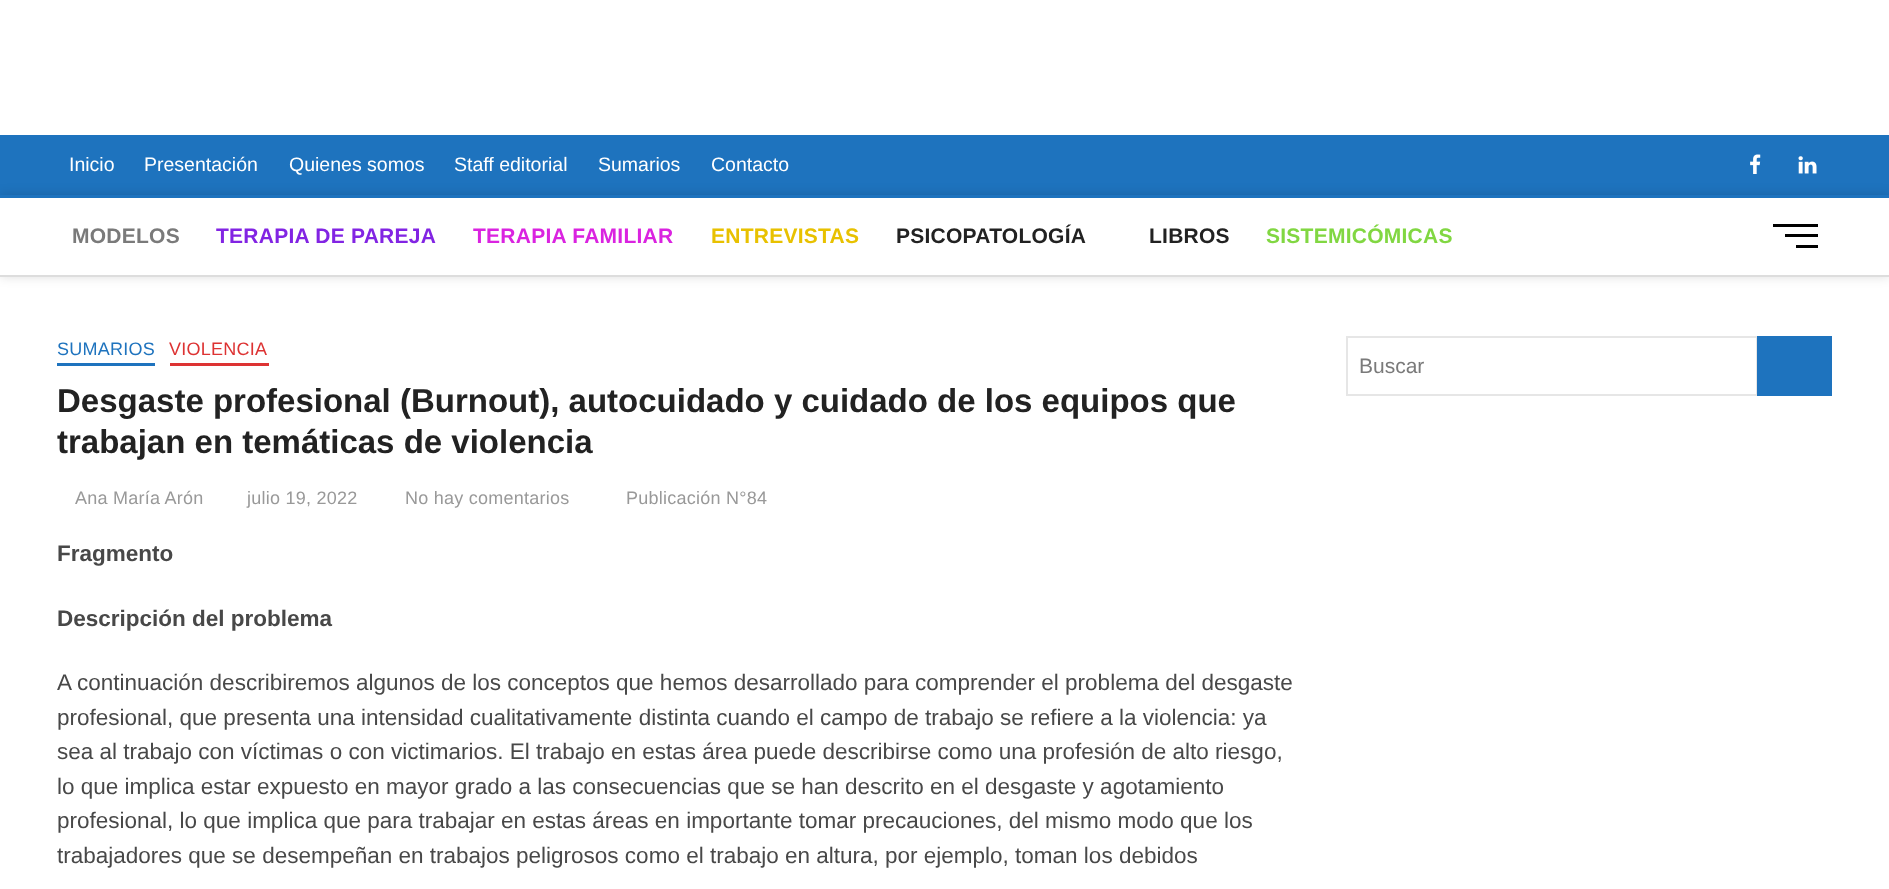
<!DOCTYPE html>
<meta charset="utf-8">
<style>body { margin: 0 } canvas { display: block }</style>
<canvas id="canvas" width="1889" height="889"></canvas>
<img id="img1" src="images/1.png" hidden>
<img id="img2" src="images/2.png" hidden>
<script>
window.onload = function () {
    const canvas = document.getElementById('canvas');
    const context = canvas.getContext('2d');
    context.miterLimit = 4;
    context.fontKerning = 'normal';

    context.fillStyle = 'rgb(255, 255, 255)';
    context.fillRect(0, 0, 1889, 889);
    context.fillStyle = 'rgb(30, 115, 190)';
    context.fillRect(0, 135, 1889, 60);
    context.drawImage(document.getElementById('img1'), 1750, 154, 11, 20);
    context.drawImage(document.getElementById('img2'), 1798, 156, 19, 18);
    context.save();
    context.beginPath();
    context.moveTo(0, 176);
    context.lineTo(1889, 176);
    context.lineTo(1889, 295);
    context.lineTo(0, 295);
    context.closePath();
    context.moveTo(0, 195);
    context.lineTo(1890, 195);
    context.lineTo(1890, 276);
    context.lineTo(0, 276);
    context.closePath();
    context.clip('evenodd');
    context.fillStyle = 'rgba(0, 0, 0, 0.15)';
    context.filter = 'blur(6px)';
    context.beginPath();
    context.rect(0, 195, 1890, 81);
    context.fill();
    context.filter = 'none';
    context.restore();
    context.fillRect(0, 195, 1889, 3);
    context.fillStyle = 'rgb(221, 221, 221)';
    context.fillRect(0, 275, 1889, 2);
    context.fillStyle = 'rgb(0, 0, 0)';
    context.fillRect(1785, 234, 33, 3);
    context.fillRect(1773, 224, 45, 3);
    context.fillRect(1796, 245, 22, 3);
    context.fillStyle = 'rgb(30, 115, 190)';
    context.fillRect(57, 363, 98, 3);
    context.fillStyle = 'rgb(221, 51, 51)';
    context.fillRect(170, 363, 99, 3);
    context.strokeStyle = 'rgb(230, 230, 230)';
    context.lineWidth = 2;
    context.strokeRect(1347, 337, 410, 58);
    context.fillStyle = 'rgb(30, 115, 190)';
    context.fillRect(1757, 336, 75, 60);
    context.font = '19.5px Liberation Sans';
    context.fillStyle = 'rgb(255, 255, 255)';
    context.fillText('Inicio', 69, 171);
    context.fillText('Presentación', 144, 171);
    context.fillText('Quienes somos', 289, 171);
    context.fillText('Staff editorial', 454, 171);
    context.fillText('Sumarios', 598, 171);
    context.fillText('Contacto', 711, 171);
    context.letterSpacing = '0.25px';
    context.font = 'bold 21px Liberation Sans';
    context.fillStyle = 'rgb(122, 122, 122)';
    context.fillText('MODELOS', 72, 243);
    context.fillStyle = 'rgb(130, 36, 227)';
    context.fillText('TERAPIA DE PAREJA', 216, 243);
    context.fillStyle = 'rgb(218, 35, 224)';
    context.fillText('TERAPIA FAMILIAR', 473, 243);
    context.fillStyle = 'rgb(232, 193, 0)';
    context.fillText('ENTREVISTAS', 711, 243);
    context.fillStyle = 'rgb(34, 34, 34)';
    context.fillText('PSICOPATOLOGÍA', 896, 243);
    context.fillText('LIBROS', 1149, 243);
    context.fillStyle = 'rgb(129, 215, 66)';
    context.fillText('SISTEMICÓMICAS', 1266, 243);
    context.font = '18px Liberation Sans';
    context.fillStyle = 'rgb(30, 115, 190)';
    context.fillText('SUMARIOS', 57, 355);
    context.fillStyle = 'rgb(221, 51, 51)';
    context.fillText('VIOLENCIA', 169, 355);
    context.letterSpacing = '0px';
    context.font = 'bold 33px Liberation Sans';
    context.fillStyle = 'rgb(34, 34, 34)';
    context.fillText('Desgaste profesional (Burnout), autocuidado y cuidado de los equipos que', 57, 412);
    context.fillText('trabajan en temáticas de violencia', 57, 453);
    context.letterSpacing = '0.25px';
    context.font = '18px Liberation Sans';
    context.fillStyle = 'rgb(153, 153, 153)';
    context.fillText('Ana María Arón', 75, 504);
    context.fillText('julio 19, 2022', 247, 504);
    context.fillText('No hay comentarios', 405, 504);
    context.fillText('Publicación N°84', 626, 504);
    context.letterSpacing = '0px';
    context.font = 'bold 22.5px Liberation Sans';
    context.fillStyle = 'rgb(72, 72, 72)';
    context.fillText('Fragmento', 57, 561);
    context.fillText('Descripción del problema', 57, 626);
    context.font = '22.5px Liberation Sans';
    context.fillText('A continuación describiremos algunos de los conceptos que hemos desarrollado para comprender el problema del desgaste', 57, 690);
    context.fillText('profesional, que presenta una intensidad cualitativamente distinta cuando el campo de trabajo se refiere a la violencia: ya', 57, 725);
    context.fillText('sea al trabajo con víctimas o con victimarios. El trabajo en estas área puede describirse como una profesión de alto riesgo,', 57, 759);
    context.fillText('lo que implica estar expuesto en mayor grado a las consecuencias que se han descrito en el desgaste y agotamiento', 57, 794);
    context.fillText('profesional, lo que implica que para trabajar en estas áreas en importante tomar precauciones, del mismo modo que los', 57, 828);
    context.fillText('trabajadores que se desempeñan en trabajos peligrosos como el trabajo en altura, por ejemplo, toman los debidos', 57, 863);
    context.font = '21px Liberation Sans';
    context.fillStyle = 'rgb(122, 122, 122)';
    context.fillText('Buscar', 1359, 373);
};
</script>
